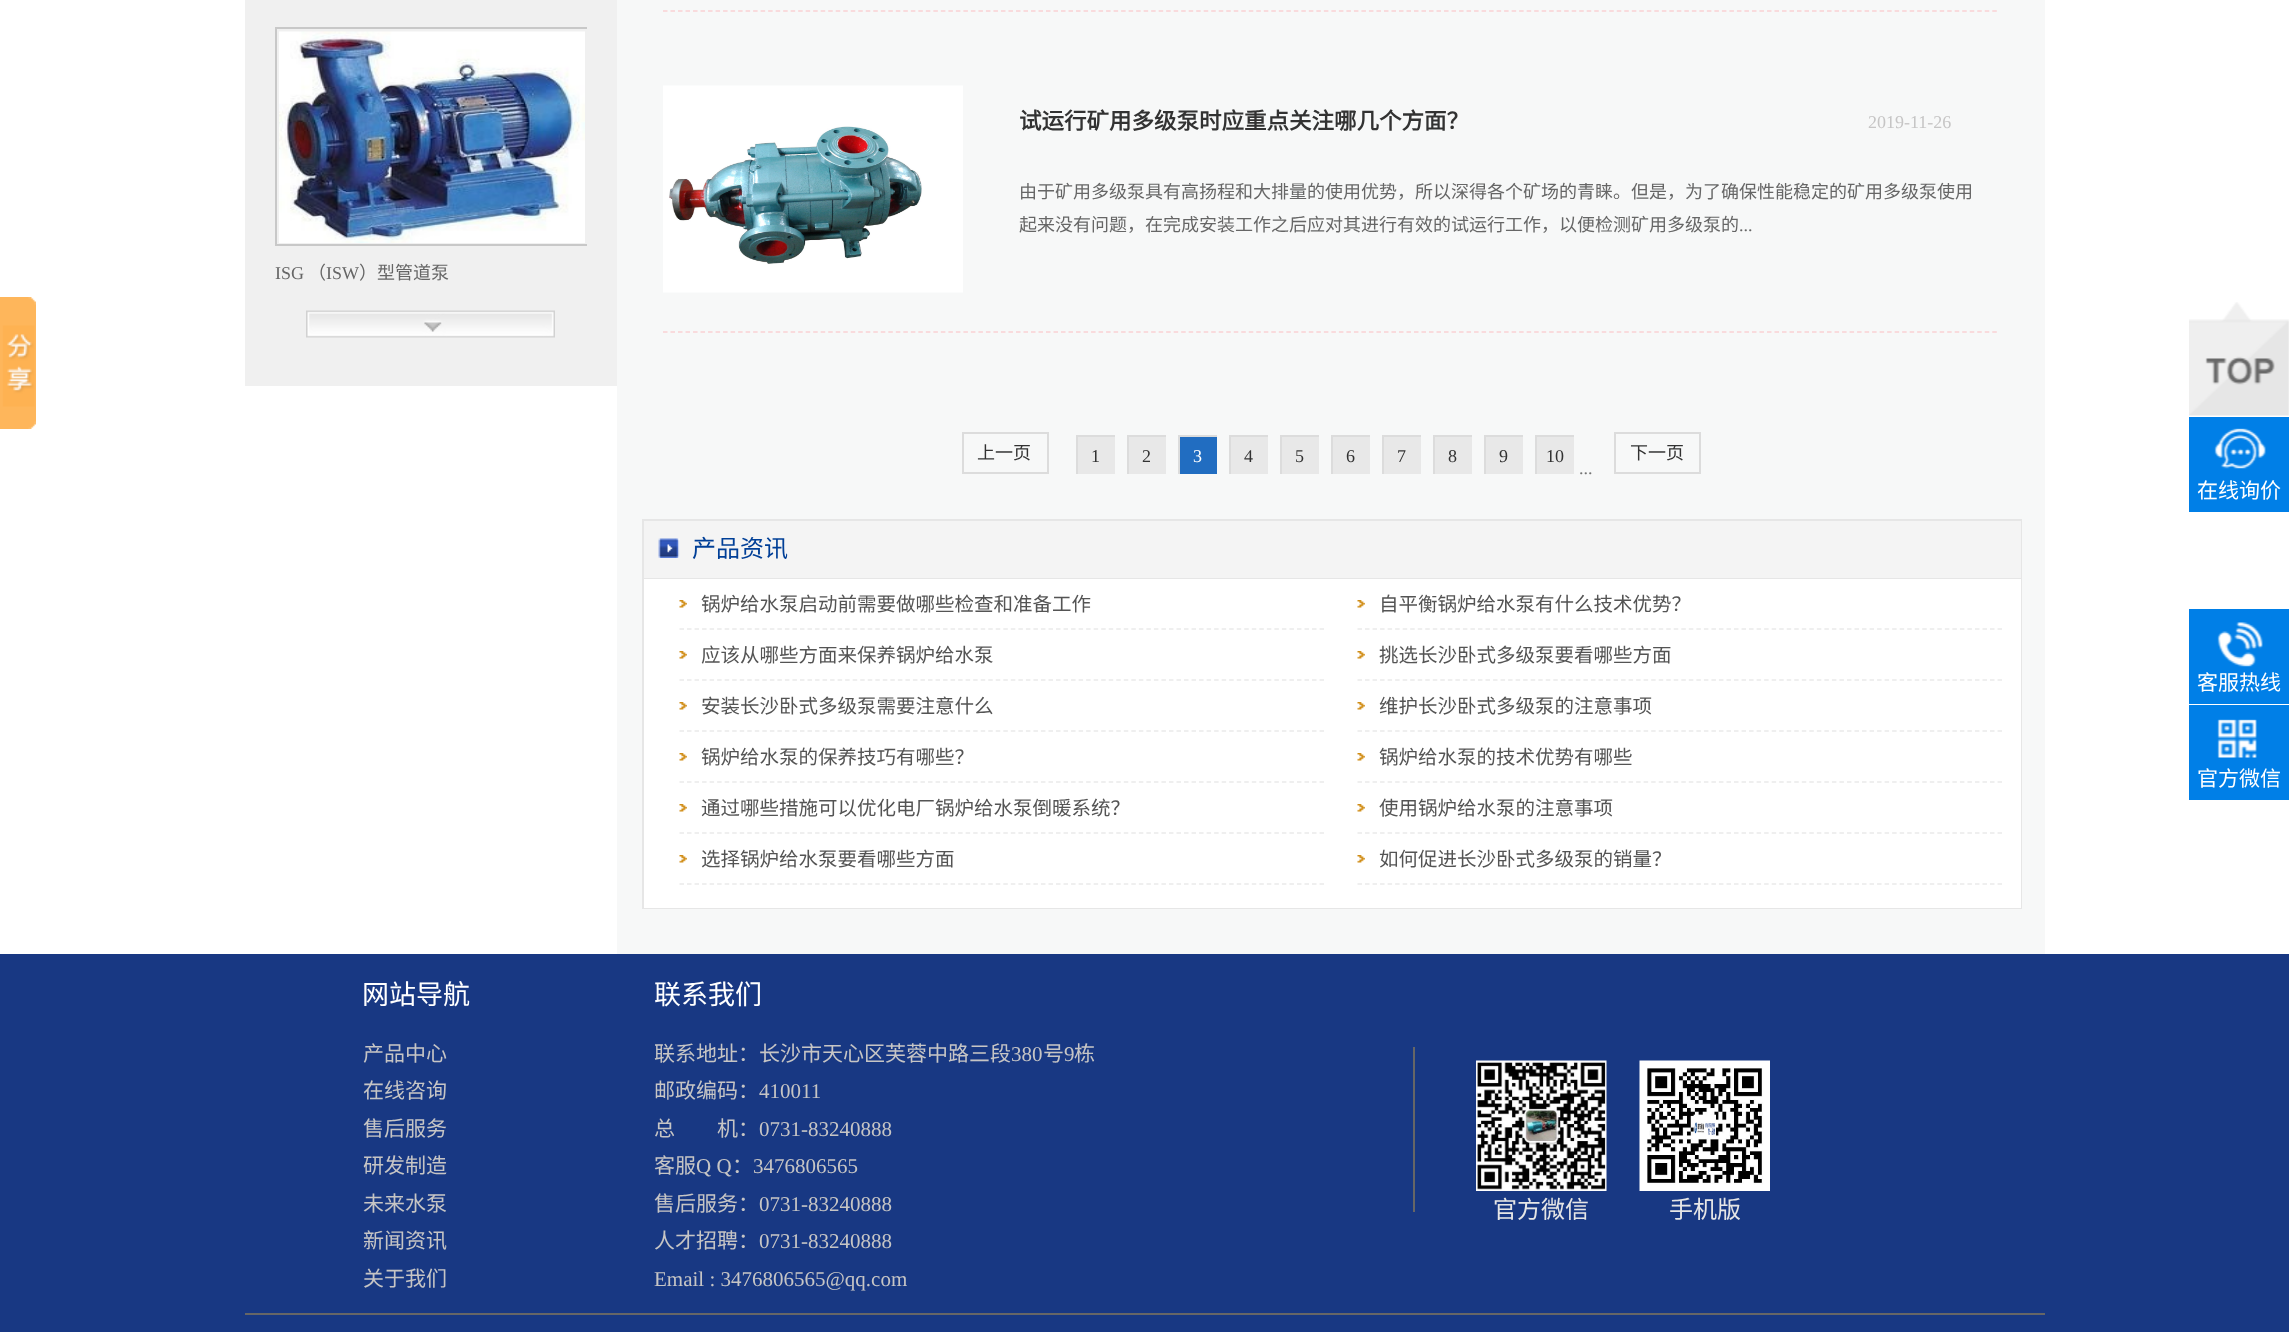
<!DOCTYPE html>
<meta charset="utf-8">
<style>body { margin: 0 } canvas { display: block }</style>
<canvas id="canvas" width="2289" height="1332"></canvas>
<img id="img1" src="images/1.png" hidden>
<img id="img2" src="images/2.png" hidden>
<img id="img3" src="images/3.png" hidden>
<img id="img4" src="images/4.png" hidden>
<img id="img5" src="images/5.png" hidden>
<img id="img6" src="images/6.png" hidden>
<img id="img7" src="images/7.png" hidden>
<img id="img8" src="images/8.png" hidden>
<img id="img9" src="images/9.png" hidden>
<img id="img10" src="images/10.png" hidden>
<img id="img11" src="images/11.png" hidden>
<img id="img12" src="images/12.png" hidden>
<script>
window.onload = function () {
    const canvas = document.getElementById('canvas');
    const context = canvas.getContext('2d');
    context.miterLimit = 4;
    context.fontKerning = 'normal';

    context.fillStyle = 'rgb(255, 255, 255)';
    context.fillRect(0, 0, 2289, 1332);
    context.drawImage(document.getElementById('img1'), 0, 297, 36, 132);
    context.fillStyle = 'rgb(240, 240, 240)';
    context.fillRect(245, 0, 372, 386);
    context.save();
    context.beginPath();
    context.rect(275, 27, 312, 260);
    context.clip();
    context.strokeStyle = 'rgb(200, 200, 200)';
    context.lineWidth = 2;
    context.strokeRect(276, 28, 313, 217);
    context.restore();
    context.drawImage(document.getElementById('img2'), 279, 31, 306, 212);
    context.drawImage(document.getElementById('img3'), 306, 310, 249, 28);
    context.fillStyle = 'rgb(247, 248, 248)';
    context.fillRect(617, 0, 1428, 954);
    context.beginPath();
    context.moveTo(663, 11);
    context.lineTo(1998, 11);
    context.strokeStyle = 'rgb(250, 209, 211)';
    context.lineWidth = 1.5;
    context.setLineDash([4.5, 3.01]);
    context.stroke();
    context.beginPath();
    context.moveTo(663, 332);
    context.lineTo(1998, 332);
    context.stroke();
    context.drawImage(document.getElementById('img4'), 663, 85, 300, 208);
    context.strokeStyle = 'rgb(220, 220, 220)';
    context.lineWidth = 2;
    context.setLineDash([]);
    context.strokeRect(963, 433, 85, 40);
    context.fillStyle = 'rgb(232, 232, 232)';
    context.fillRect(1078, 437, 37, 37);
    context.save();
    context.beginPath();
    context.rect(1076, 435, 39, 39);
    context.clip();
    context.strokeRect(1077, 436, 40, 40);
    context.restore();
    context.fillRect(1129, 437, 37, 37);
    context.save();
    context.beginPath();
    context.rect(1127, 435, 39, 39);
    context.clip();
    context.strokeRect(1128, 436, 40, 40);
    context.restore();
    context.fillStyle = 'rgb(33, 109, 193)';
    context.fillRect(1180, 437, 37, 37);
    context.save();
    context.beginPath();
    context.rect(1178, 435, 39, 39);
    context.clip();
    context.strokeRect(1179, 436, 40, 40);
    context.restore();
    context.fillStyle = 'rgb(232, 232, 232)';
    context.fillRect(1231, 437, 37, 37);
    context.save();
    context.beginPath();
    context.rect(1229, 435, 39, 39);
    context.clip();
    context.strokeRect(1230, 436, 40, 40);
    context.restore();
    context.fillRect(1282, 437, 37, 37);
    context.save();
    context.beginPath();
    context.rect(1280, 435, 39, 39);
    context.clip();
    context.strokeRect(1281, 436, 40, 40);
    context.restore();
    context.fillRect(1333, 437, 37, 37);
    context.save();
    context.beginPath();
    context.rect(1331, 435, 39, 39);
    context.clip();
    context.strokeRect(1332, 436, 40, 40);
    context.restore();
    context.fillRect(1384, 437, 37, 37);
    context.save();
    context.beginPath();
    context.rect(1382, 435, 39, 39);
    context.clip();
    context.strokeRect(1383, 436, 40, 40);
    context.restore();
    context.fillRect(1435, 437, 37, 37);
    context.save();
    context.beginPath();
    context.rect(1433, 435, 39, 39);
    context.clip();
    context.strokeRect(1434, 436, 40, 40);
    context.restore();
    context.fillRect(1486, 437, 37, 37);
    context.save();
    context.beginPath();
    context.rect(1484, 435, 39, 39);
    context.clip();
    context.strokeRect(1485, 436, 40, 40);
    context.restore();
    context.fillRect(1537, 437, 37, 37);
    context.save();
    context.beginPath();
    context.rect(1535, 435, 39, 39);
    context.clip();
    context.strokeRect(1536, 436, 40, 40);
    context.restore();
    context.strokeRect(1615, 433, 85, 40);
    context.strokeStyle = 'rgb(230, 230, 230)';
    context.strokeRect(643, 520, 1378, 388);
    context.fillStyle = 'rgb(244, 244, 244)';
    context.fillRect(644, 521, 1377, 57);
    context.fillStyle = 'rgb(230, 230, 230)';
    context.fillRect(644, 578, 1377, 1);
    context.drawImage(document.getElementById('img5'), 658, 538, 22, 20);
    context.fillStyle = 'rgb(255, 255, 255)';
    context.fillRect(644, 579, 1377, 329);
    context.beginPath();
    context.moveTo(679.5, 629);
    context.lineTo(1324.5, 629);
    context.strokeStyle = 'rgb(234, 234, 234)';
    context.lineWidth = 1.5;
    context.setLineDash([4.5, 3.03]);
    context.stroke();
    context.drawImage(document.getElementById('img6'), 679, 600, 8, 8);
    context.beginPath();
    context.moveTo(1357.5, 629);
    context.lineTo(2002.5, 629);
    context.stroke();
    context.drawImage(document.getElementById('img6'), 1357, 600, 8, 8);
    context.beginPath();
    context.moveTo(679.5, 680);
    context.lineTo(1324.5, 680);
    context.stroke();
    context.drawImage(document.getElementById('img6'), 679, 651, 8, 8);
    context.beginPath();
    context.moveTo(1357.5, 680);
    context.lineTo(2002.5, 680);
    context.stroke();
    context.drawImage(document.getElementById('img6'), 1357, 651, 8, 8);
    context.beginPath();
    context.moveTo(679.5, 731);
    context.lineTo(1324.5, 731);
    context.stroke();
    context.drawImage(document.getElementById('img6'), 679, 702, 8, 8);
    context.beginPath();
    context.moveTo(1357.5, 731);
    context.lineTo(2002.5, 731);
    context.stroke();
    context.drawImage(document.getElementById('img6'), 1357, 702, 8, 8);
    context.beginPath();
    context.moveTo(679.5, 782);
    context.lineTo(1324.5, 782);
    context.stroke();
    context.drawImage(document.getElementById('img6'), 679, 753, 8, 8);
    context.beginPath();
    context.moveTo(1357.5, 782);
    context.lineTo(2002.5, 782);
    context.stroke();
    context.drawImage(document.getElementById('img6'), 1357, 753, 8, 8);
    context.beginPath();
    context.moveTo(679.5, 833);
    context.lineTo(1324.5, 833);
    context.stroke();
    context.drawImage(document.getElementById('img6'), 679, 804, 8, 8);
    context.beginPath();
    context.moveTo(1357.5, 833);
    context.lineTo(2002.5, 833);
    context.stroke();
    context.drawImage(document.getElementById('img6'), 1357, 804, 8, 8);
    context.beginPath();
    context.moveTo(679.5, 884);
    context.lineTo(1324.5, 884);
    context.stroke();
    context.drawImage(document.getElementById('img6'), 679, 855, 8, 8);
    context.beginPath();
    context.moveTo(1357.5, 884);
    context.lineTo(2002.5, 884);
    context.stroke();
    context.drawImage(document.getElementById('img6'), 1357, 855, 8, 8);
    context.drawImage(document.getElementById('img7'), 2189, 302, 100, 114);
    context.fillStyle = 'rgb(0, 127, 231)';
    context.fillRect(2189, 417, 100, 95);
    context.drawImage(document.getElementById('img8'), 2214, 428, 52, 41);
    context.fillRect(2189, 609, 100, 95);
    context.drawImage(document.getElementById('img9'), 2217, 622, 46, 45);
    context.fillRect(2189, 705, 100, 95);
    context.drawImage(document.getElementById('img10'), 2217, 719, 40, 39);
    context.fillStyle = 'rgb(24, 56, 131)';
    context.fillRect(0, 954, 2289, 378);
    context.fillStyle = 'rgb(102, 102, 102)';
    context.fillRect(1413, 1047, 2, 165);
    context.drawImage(document.getElementById('img11'), 1476, 1060, 131, 131);
    context.drawImage(document.getElementById('img12'), 1639, 1060, 131, 131);
    context.fillRect(245, 1313, 1800, 2);
    context.font = '18px Liberation Serif';
    context.fillText('ISG', 275, 279);
    context.font = '18px Noto Sans CJK SC';
    context.fillText('（', 308, 279);
    context.font = '18px Liberation Serif';
    context.fillText('ISW', 326, 279);
    context.font = '18px Noto Sans CJK SC';
    context.fillText('）型管道泵', 359, 279);
    context.font = 'bold 22.5px Noto Sans CJK SC';
    context.fillStyle = 'rgb(50, 50, 50)';
    context.fillText('试运行矿用多级泵时应重点关注哪几个方面？', 1019, 129);
    context.font = '18px Liberation Serif';
    context.fillStyle = 'rgb(198, 197, 197)';
    context.fillText('2019-11-26', 1868, 128);
    context.font = '18px Noto Sans CJK SC';
    context.fillStyle = 'rgb(102, 102, 102)';
    context.fillText('由于矿用多级泵具有高扬程和大排量的使用优势，所以深得各个矿场的青睐。但是，为了确保性能稳定的矿用多级泵使用', 1019, 198);
    context.fillText('起来没有问题，在完成安装工作之后应对其进行有效的试运行工作，以便检测矿用多级泵的', 1019, 231);
    context.font = '18px Liberation Serif';
    context.fillText('...', 1739, 231);
    context.font = '18px Noto Sans CJK SC';
    context.fillStyle = 'rgb(50, 50, 50)';
    context.fillText('上一页', 977, 459);
    context.font = '18px Liberation Serif';
    context.fillText('1', 1091, 462);
    context.fillText('2', 1142, 462);
    context.fillStyle = 'rgb(255, 255, 255)';
    context.fillText('3', 1193, 462);
    context.fillStyle = 'rgb(50, 50, 50)';
    context.fillText('4', 1244, 462);
    context.fillText('5', 1295, 462);
    context.fillText('6', 1346, 462);
    context.fillText('7', 1397, 462);
    context.fillText('8', 1448, 462);
    context.fillText('9', 1499, 462);
    context.fillText('10', 1546, 462);
    context.font = '18px Noto Sans CJK SC';
    context.fillText('下一页', 1630, 459);
    context.font = '18px Liberation Serif';
    context.fillStyle = 'rgb(115, 115, 115)';
    context.fillText('...', 1579, 474);
    context.font = '24px Noto Sans CJK SC';
    context.fillStyle = 'rgb(0, 63, 151)';
    context.fillText('产品资讯', 692, 557);
    context.font = '19.5px Noto Sans CJK SC';
    context.fillStyle = 'rgb(84, 84, 84)';
    context.fillText('锅炉给水泵启动前需要做哪些检查和准备工作', 701, 611);
    context.fillText('自平衡锅炉给水泵有什么技术优势？', 1379, 611);
    context.fillText('应该从哪些方面来保养锅炉给水泵', 701, 662);
    context.fillText('挑选长沙卧式多级泵要看哪些方面', 1379, 662);
    context.fillText('安装长沙卧式多级泵需要注意什么', 701, 713);
    context.fillText('维护长沙卧式多级泵的注意事项', 1379, 713);
    context.fillText('锅炉给水泵的保养技巧有哪些？', 701, 764);
    context.fillText('锅炉给水泵的技术优势有哪些', 1379, 764);
    context.fillText('通过哪些措施可以优化电厂锅炉给水泵倒暖系统？', 701, 815);
    context.fillText('使用锅炉给水泵的注意事项', 1379, 815);
    context.fillText('选择锅炉给水泵要看哪些方面', 701, 866);
    context.fillText('如何促进长沙卧式多级泵的销量？', 1379, 866);
    context.font = '21px Noto Sans CJK SC';
    context.fillStyle = 'rgb(255, 255, 255)';
    context.fillText('在线询价', 2197, 498);
    context.fillText('客服热线', 2197, 690);
    context.fillText('官方微信', 2197, 786);
    context.font = '27px Noto Sans CJK SC';
    context.fillText('网站导航', 362, 1004);
    context.font = '21px Noto Sans CJK SC';
    context.fillStyle = 'rgb(198, 197, 197)';
    context.fillText('产品中心', 363, 1061);
    context.fillText('在线咨询', 363, 1098);
    context.fillText('售后服务', 363, 1136);
    context.fillText('研发制造', 363, 1173);
    context.fillText('未来水泵', 363, 1211);
    context.fillText('新闻资讯', 363, 1248);
    context.fillText('关于我们', 363, 1286);
    context.font = '27px Noto Sans CJK SC';
    context.fillStyle = 'rgb(255, 255, 255)';
    context.fillText('联系我们', 654, 1004);
    context.font = '21px Noto Sans CJK SC';
    context.fillStyle = 'rgb(198, 197, 197)';
    context.fillText('联系地址：长沙市天心区芙蓉中路三段', 654, 1061);
    context.font = '21px Liberation Serif';
    context.fillText('380', 1011, 1061);
    context.font = '21px Noto Sans CJK SC';
    context.fillText('号', 1043, 1061);
    context.font = '21px Liberation Serif';
    context.fillText('9', 1064, 1061);
    context.font = '21px Noto Sans CJK SC';
    context.fillText('栋', 1074, 1061);
    context.fillText('邮政编码：', 654, 1098);
    context.font = '21px Liberation Serif';
    context.fillText('410011', 759, 1098);
    context.font = '21px Noto Sans CJK SC';
    context.fillText('总　　机：', 654, 1136);
    context.font = '21px Liberation Serif';
    context.fillText('0731-83240888', 759, 1136);
    context.font = '21px Noto Sans CJK SC';
    context.fillText('客服', 654, 1173);
    context.font = '21px Liberation Serif';
    context.fillText('Q Q', 696, 1173);
    context.font = '21px Noto Sans CJK SC';
    context.fillText('：', 732, 1173);
    context.font = '21px Liberation Serif';
    context.fillText('3476806565', 753, 1173);
    context.font = '21px Noto Sans CJK SC';
    context.fillText('售后服务：', 654, 1211);
    context.font = '21px Liberation Serif';
    context.fillText('0731-83240888', 759, 1211);
    context.font = '21px Noto Sans CJK SC';
    context.fillText('人才招聘：', 654, 1248);
    context.font = '21px Liberation Serif';
    context.fillText('0731-83240888', 759, 1248);
    context.fillText('Email : 3476806565@qq.com', 654, 1286);
    context.font = '24px Noto Sans CJK SC';
    context.fillStyle = 'rgb(230, 230, 230)';
    context.fillText('官方微信', 1493, 1218);
    context.fillText('手机版', 1669, 1218);
};
</script>
